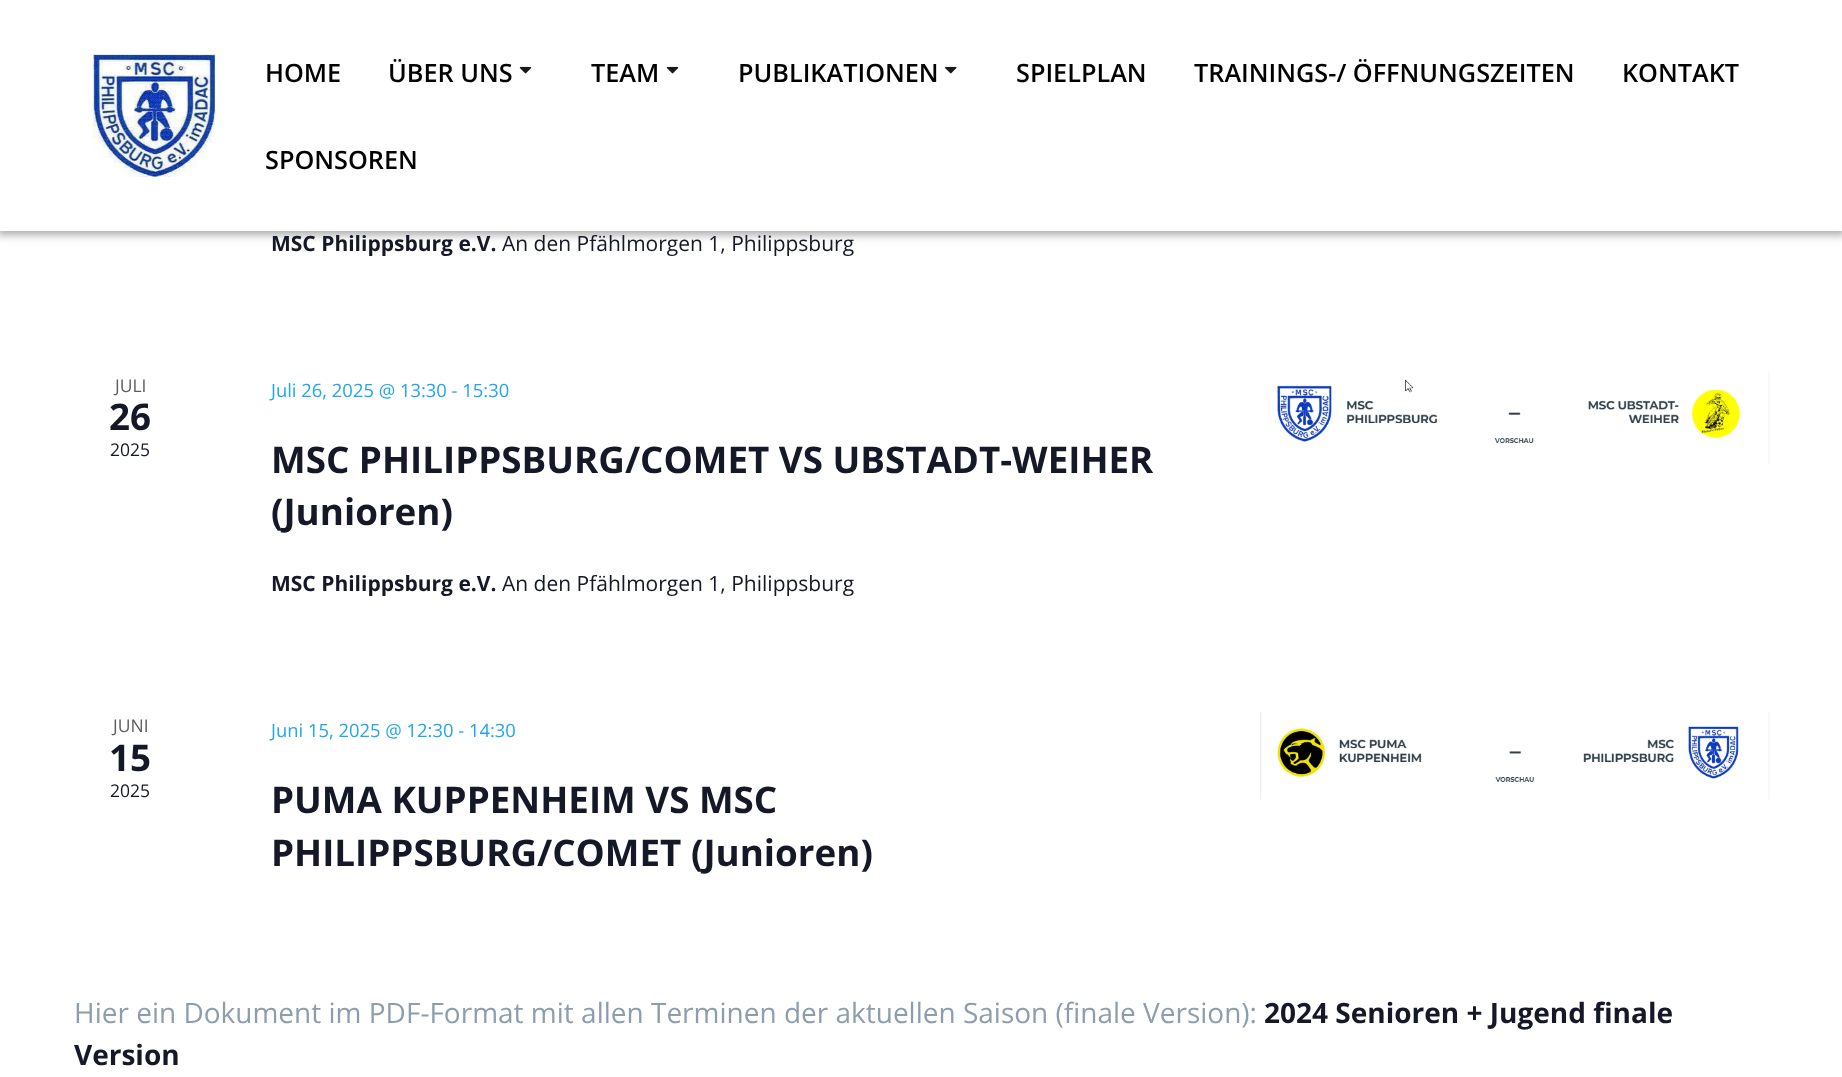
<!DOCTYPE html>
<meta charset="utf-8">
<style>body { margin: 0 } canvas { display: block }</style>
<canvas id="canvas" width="1842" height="1077"></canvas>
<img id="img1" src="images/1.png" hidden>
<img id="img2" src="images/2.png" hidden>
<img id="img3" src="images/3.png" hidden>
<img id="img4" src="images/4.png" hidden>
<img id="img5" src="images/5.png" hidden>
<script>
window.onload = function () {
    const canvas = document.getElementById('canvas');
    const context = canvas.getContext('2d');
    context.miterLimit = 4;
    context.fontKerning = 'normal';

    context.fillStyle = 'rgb(255, 255, 255)';
    context.fillRect(0, 0, 1842, 1077);
    context.fillStyle = 'rgba(0, 0, 0, 0.33)';
    context.filter = 'blur(4.5px)';
    context.beginPath();
    context.rect(-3, -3, 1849, 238);
    context.fill();
    context.filter = 'none';
    context.fillStyle = 'rgb(255, 255, 255)';
    context.fillRect(0, 0, 1842, 231);
    context.drawImage(document.getElementById('img1'), 92, 54, 124, 123);
    context.drawImage(document.getElementById('img2'), 519, 66, 13, 8);
    context.drawImage(document.getElementById('img2'), 666, 66, 13, 8);
    context.drawImage(document.getElementById('img3'), 945, 66, 12, 8);
    context.drawImage(document.getElementById('img4'), 1277, 372, 493, 93);
    context.drawImage(document.getElementById('img5'), 1260, 712, 510, 88);
    context.font = '600 25.25px Open Sans';
    context.fillStyle = 'rgb(0, 0, 0)';
    context.fillText('HOME', 265, 82);
    context.fillText('ÜBER UNS', 388, 82);
    context.fillText('TEAM', 591, 82);
    context.fillText('PUBLIKATIONEN', 738, 82);
    context.fillText('SPIELPLAN', 1016, 82);
    context.fillText('TRAININGS-/ ÖFFNUNGSZEITEN', 1194, 82);
    context.fillText('KONTAKT', 1622, 82);
    context.fillText('SPONSOREN', 265, 169);
    context.font = 'bold 21px Open Sans';
    context.fillStyle = 'rgb(20, 24, 39)';
    context.fillText('MSC Philippsburg e.V.', 271, 251);
    context.font = '21px Open Sans';
    context.fillText('An den Pfählmorgen 1, Philippsburg', 502, 251);
    context.font = '17.5px Open Sans';
    context.fillStyle = 'rgb(93, 93, 93)';
    context.fillText('JULI', 115, 392);
    context.font = 'bold 36.75px Open Sans';
    context.fillStyle = 'rgb(20, 24, 39)';
    context.fillText('26', 109, 430);
    context.font = '17.5px Open Sans';
    context.fillText('2025', 110, 456);
    context.font = '18.4px Open Sans';
    context.fillStyle = 'rgb(33, 166, 232)';
    context.fillText('Juli 26, 2025 @ 13:30 - 15:30', 271, 397);
    context.font = 'bold 36.75px Open Sans';
    context.fillStyle = 'rgb(20, 24, 39)';
    context.fillText('MSC PHILIPPSBURG/COMET VS UBSTADT-WEIHER', 271, 473);
    context.fillText('(Junioren)', 271, 525);
    context.font = 'bold 21px Open Sans';
    context.fillText('MSC Philippsburg e.V.', 271, 591);
    context.font = '21px Open Sans';
    context.fillText('An den Pfählmorgen 1, Philippsburg', 502, 591);
    context.font = '17.5px Open Sans';
    context.fillStyle = 'rgb(93, 93, 93)';
    context.fillText('JUNI', 113, 732);
    context.font = 'bold 36.75px Open Sans';
    context.fillStyle = 'rgb(20, 24, 39)';
    context.fillText('15', 109, 771);
    context.font = '17.5px Open Sans';
    context.fillText('2025', 110, 797);
    context.font = '18.4px Open Sans';
    context.fillStyle = 'rgb(33, 166, 232)';
    context.fillText('Juni 15, 2025 @ 12:30 - 14:30', 271, 737);
    context.font = 'bold 36.75px Open Sans';
    context.fillStyle = 'rgb(20, 24, 39)';
    context.fillText('PUMA KUPPENHEIM VS MSC', 271, 813);
    context.fillText('PHILIPPSBURG/COMET (Junioren)', 271, 866);
    context.font = '28px Open Sans';
    context.fillStyle = 'rgb(142, 157, 174)';
    context.fillText('Hier ein Dokument im PDF-Format mit allen Terminen der aktuellen Saison (finale Version):', 74, 1023);
    context.font = 'bold 28px Open Sans';
    context.fillStyle = 'rgb(20, 24, 39)';
    context.fillText('2024 Senioren + Jugend finale', 1264, 1023);
    context.fillText('Version', 74, 1065);
};
</script>
